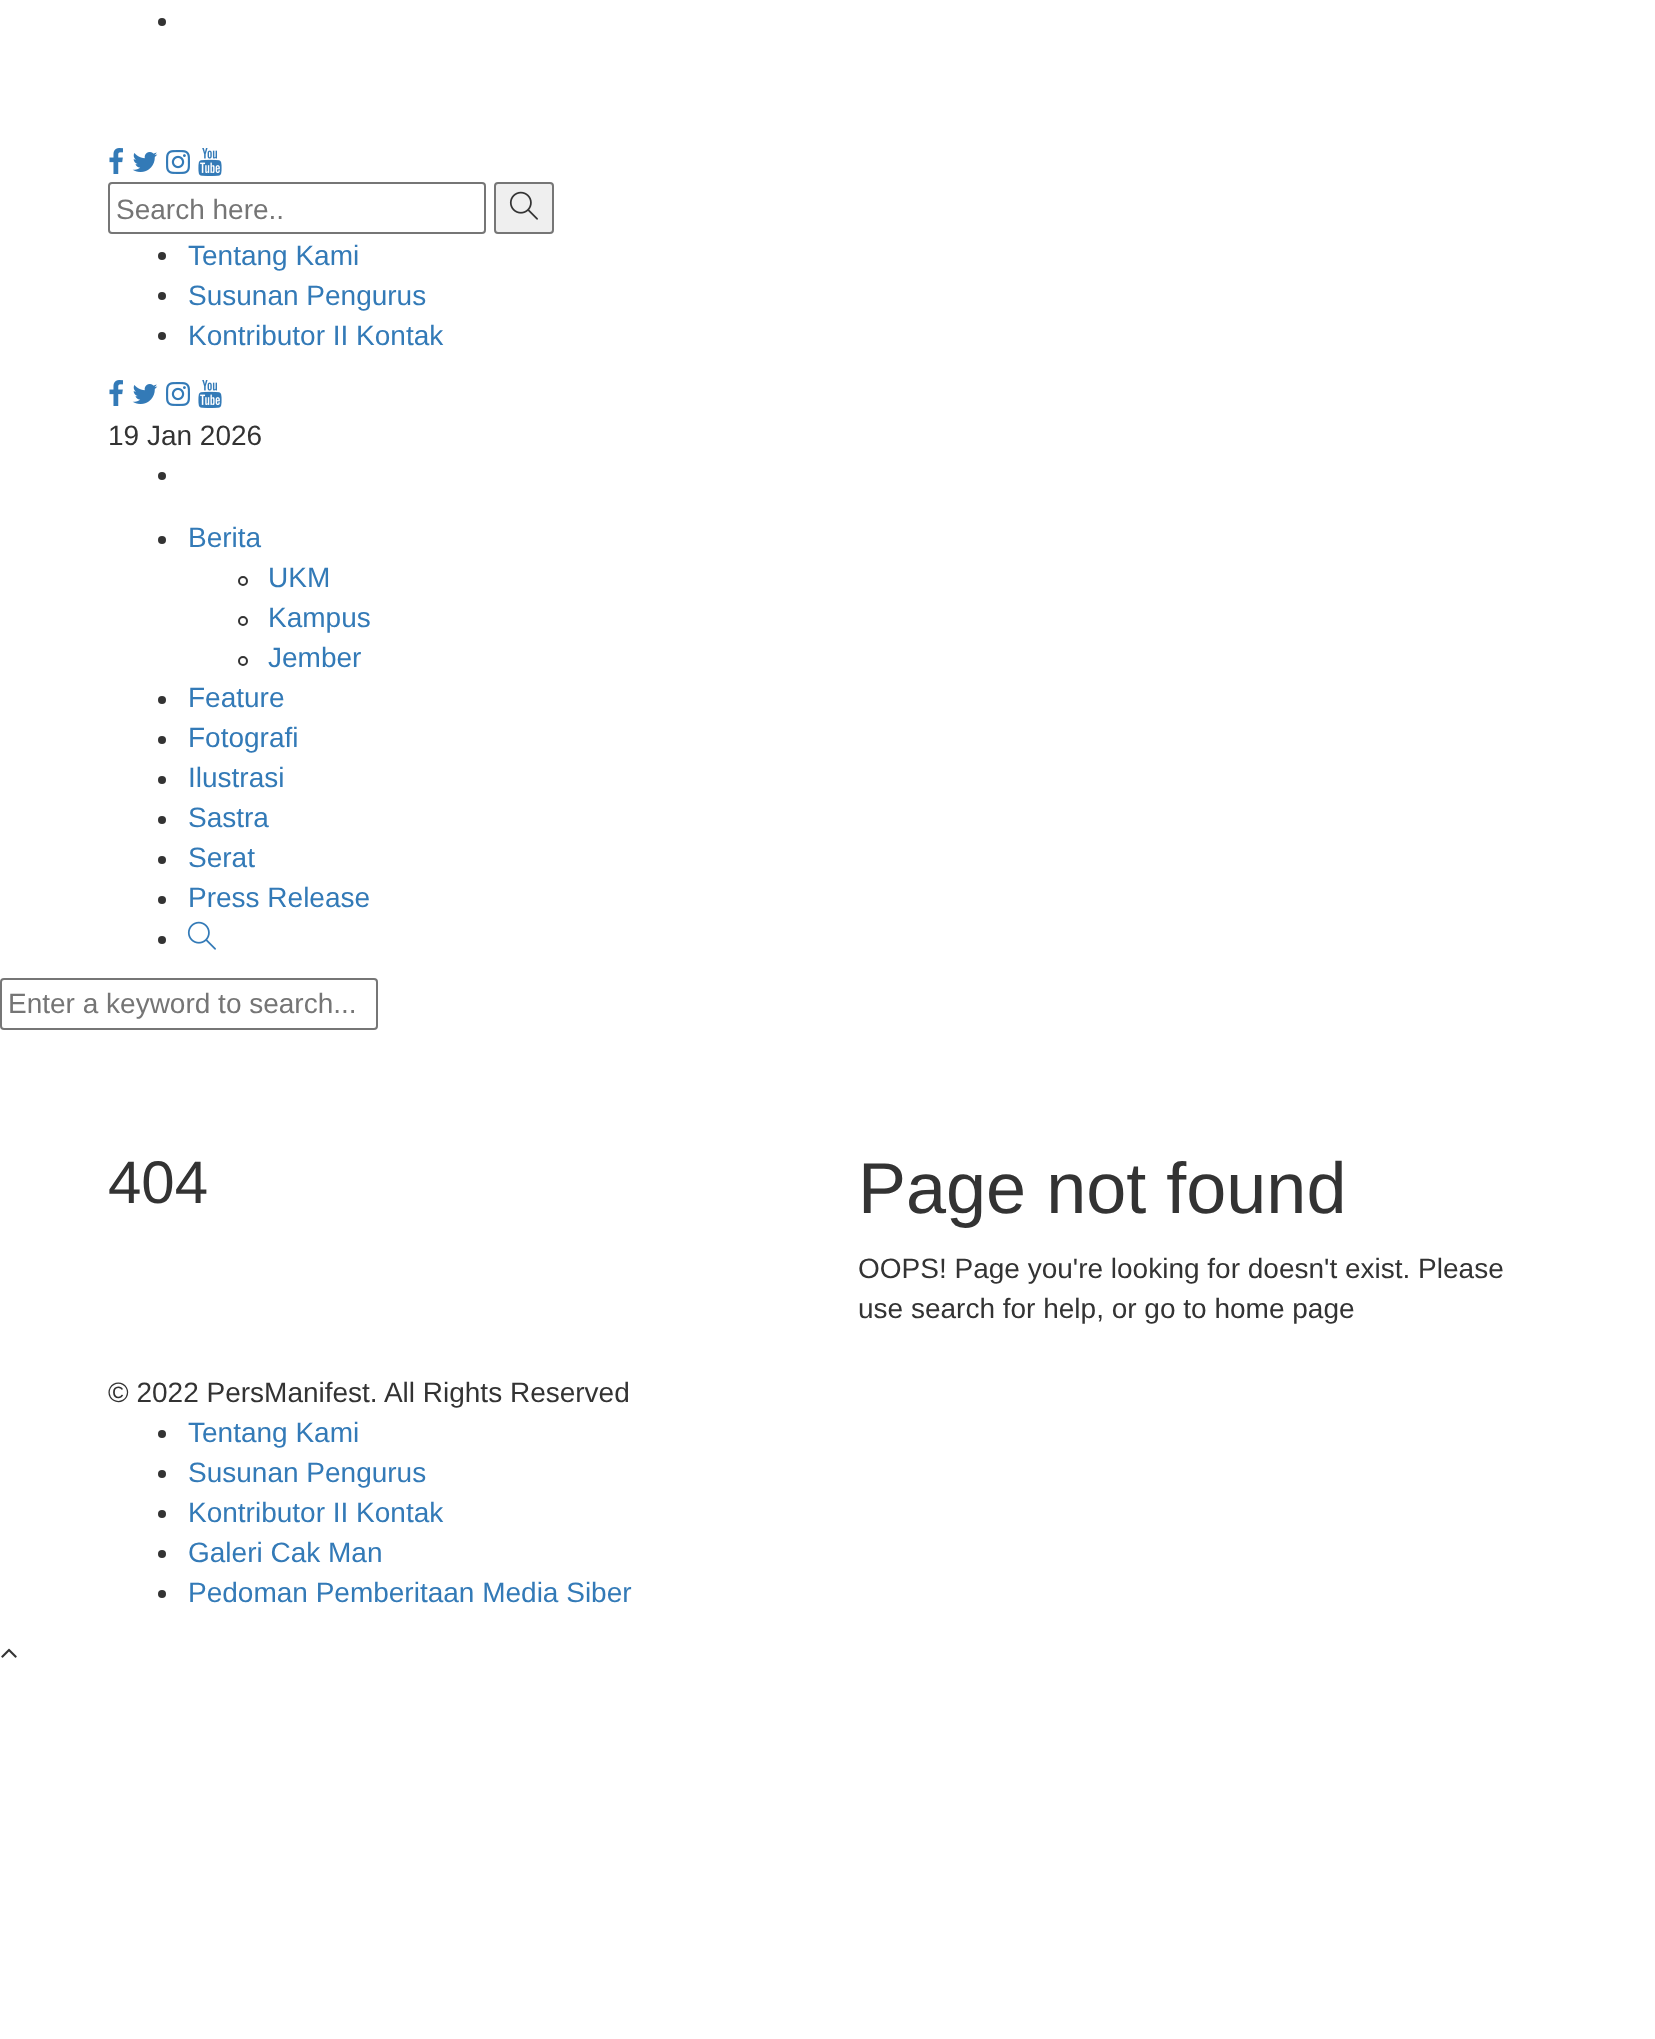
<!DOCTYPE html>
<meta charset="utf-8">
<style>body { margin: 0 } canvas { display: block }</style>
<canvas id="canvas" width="1655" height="2039"></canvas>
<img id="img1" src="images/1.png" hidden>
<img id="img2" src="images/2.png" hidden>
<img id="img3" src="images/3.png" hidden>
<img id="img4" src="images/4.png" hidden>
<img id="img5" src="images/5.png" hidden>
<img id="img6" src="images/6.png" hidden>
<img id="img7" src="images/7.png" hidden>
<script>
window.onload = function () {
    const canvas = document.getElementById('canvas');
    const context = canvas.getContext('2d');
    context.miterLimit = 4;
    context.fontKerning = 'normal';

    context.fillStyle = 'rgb(255, 255, 255)';
    context.fillRect(0, 0, 1655, 2039);
    context.fillStyle = 'rgb(51, 51, 51)';
    context.beginPath();
    context.arc(162, 22, 4, 0, 2 * Math.PI);
    context.fill();
    context.drawImage(document.getElementById('img1'), 109, 148, 14, 26);
    context.drawImage(document.getElementById('img2'), 132, 152, 26, 20);
    context.drawImage(document.getElementById('img3'), 166, 150, 24, 24);
    context.drawImage(document.getElementById('img4'), 198, 148, 24, 28);
    context.beginPath();
    context.roundRect(109, 183, 376, 50, 3);
    context.strokeStyle = 'rgb(118, 118, 118)';
    context.lineWidth = 2;
    context.stroke();
    context.fillStyle = 'rgb(239, 239, 239)';
    context.beginPath();
    context.roundRect(495, 183, 58, 50, 3);
    context.fill();
    context.stroke();
    context.drawImage(document.getElementById('img5'), 509, 191, 29, 29);
    context.fillStyle = 'rgb(51, 51, 51)';
    context.beginPath();
    context.arc(162, 256, 4, 0, 2 * Math.PI);
    context.fill();
    context.beginPath();
    context.arc(162, 296, 4, 0, 2 * Math.PI);
    context.fill();
    context.beginPath();
    context.arc(162, 336, 4, 0, 2 * Math.PI);
    context.fill();
    context.drawImage(document.getElementById('img1'), 109, 380, 14, 26);
    context.drawImage(document.getElementById('img2'), 132, 384, 26, 20);
    context.drawImage(document.getElementById('img3'), 166, 382, 24, 24);
    context.drawImage(document.getElementById('img4'), 198, 380, 24, 28);
    context.beginPath();
    context.arc(162, 476, 4, 0, 2 * Math.PI);
    context.fill();
    context.beginPath();
    context.arc(162, 540, 4, 0, 2 * Math.PI);
    context.fill();
    context.beginPath();
    context.arc(243, 581, 4, 0, 2 * Math.PI);
    context.strokeStyle = 'rgb(51, 51, 51)';
    context.stroke();
    context.beginPath();
    context.arc(243, 621, 4, 0, 2 * Math.PI);
    context.stroke();
    context.beginPath();
    context.arc(243, 661, 4, 0, 2 * Math.PI);
    context.stroke();
    context.beginPath();
    context.arc(162, 700, 4, 0, 2 * Math.PI);
    context.fill();
    context.beginPath();
    context.arc(162, 740, 4, 0, 2 * Math.PI);
    context.fill();
    context.beginPath();
    context.arc(162, 780, 4, 0, 2 * Math.PI);
    context.fill();
    context.beginPath();
    context.arc(162, 820, 4, 0, 2 * Math.PI);
    context.fill();
    context.beginPath();
    context.arc(162, 860, 4, 0, 2 * Math.PI);
    context.fill();
    context.beginPath();
    context.arc(162, 900, 4, 0, 2 * Math.PI);
    context.fill();
    context.beginPath();
    context.arc(162, 940, 4, 0, 2 * Math.PI);
    context.fill();
    context.drawImage(document.getElementById('img6'), 187, 921, 29, 29);
    context.beginPath();
    context.roundRect(1, 979, 376, 50, 3);
    context.strokeStyle = 'rgb(118, 118, 118)';
    context.stroke();
    context.beginPath();
    context.arc(162, 1434, 4, 0, 2 * Math.PI);
    context.fill();
    context.beginPath();
    context.arc(162, 1474, 4, 0, 2 * Math.PI);
    context.fill();
    context.beginPath();
    context.arc(162, 1514, 4, 0, 2 * Math.PI);
    context.fill();
    context.beginPath();
    context.arc(162, 1554, 4, 0, 2 * Math.PI);
    context.fill();
    context.beginPath();
    context.arc(162, 1594, 4, 0, 2 * Math.PI);
    context.fill();
    context.drawImage(document.getElementById('img7'), 1, 1648, 16, 10);
    context.font = '28px Liberation Sans';
    context.fillStyle = 'rgb(117, 117, 117)';
    context.fillText('Search here..', 116, 219);
    context.fillStyle = 'rgb(51, 122, 183)';
    context.fillText('Tentang Kami', 188, 265);
    context.fillText('Susunan Pengurus', 188, 305);
    context.fillText('Kontributor II Kontak', 188, 345);
    context.fillStyle = 'rgb(51, 51, 51)';
    context.fillText('19 Jan 2026', 108, 445);
    context.fillStyle = 'rgb(51, 122, 183)';
    context.fillText('Berita', 188, 547);
    context.fillText('UKM', 268, 587);
    context.fillText('Kampus', 268, 627);
    context.fillText('Jember', 268, 667);
    context.fillText('Feature', 188, 707);
    context.fillText('Fotografi', 188, 747);
    context.fillText('Ilustrasi', 188, 787);
    context.fillText('Sastra', 188, 827);
    context.fillText('Serat', 188, 867);
    context.fillText('Press Release', 188, 907);
    context.fillStyle = 'rgb(117, 117, 117)';
    context.fillText('Enter a keyword to search...', 8, 1013);
    context.font = '60px Liberation Sans';
    context.fillStyle = 'rgb(51, 51, 51)';
    context.fillText('404', 108, 1203);
    context.font = '72px Liberation Sans';
    context.fillText('Page not found', 858, 1213);
    context.font = '28px Liberation Sans';
    context.fillText('OOPS! Page you\'re looking for doesn\'t exist. Please', 858, 1278);
    context.fillText('use search for help, or go to home page', 858, 1318);
    context.fillText('© 2022 PersManifest. All Rights Reserved', 108, 1402);
    context.fillStyle = 'rgb(51, 122, 183)';
    context.fillText('Tentang Kami', 188, 1442);
    context.fillText('Susunan Pengurus', 188, 1482);
    context.fillText('Kontributor II Kontak', 188, 1522);
    context.fillText('Galeri Cak Man', 188, 1562);
    context.fillText('Pedoman Pemberitaan Media Siber', 188, 1602);
};
</script>
